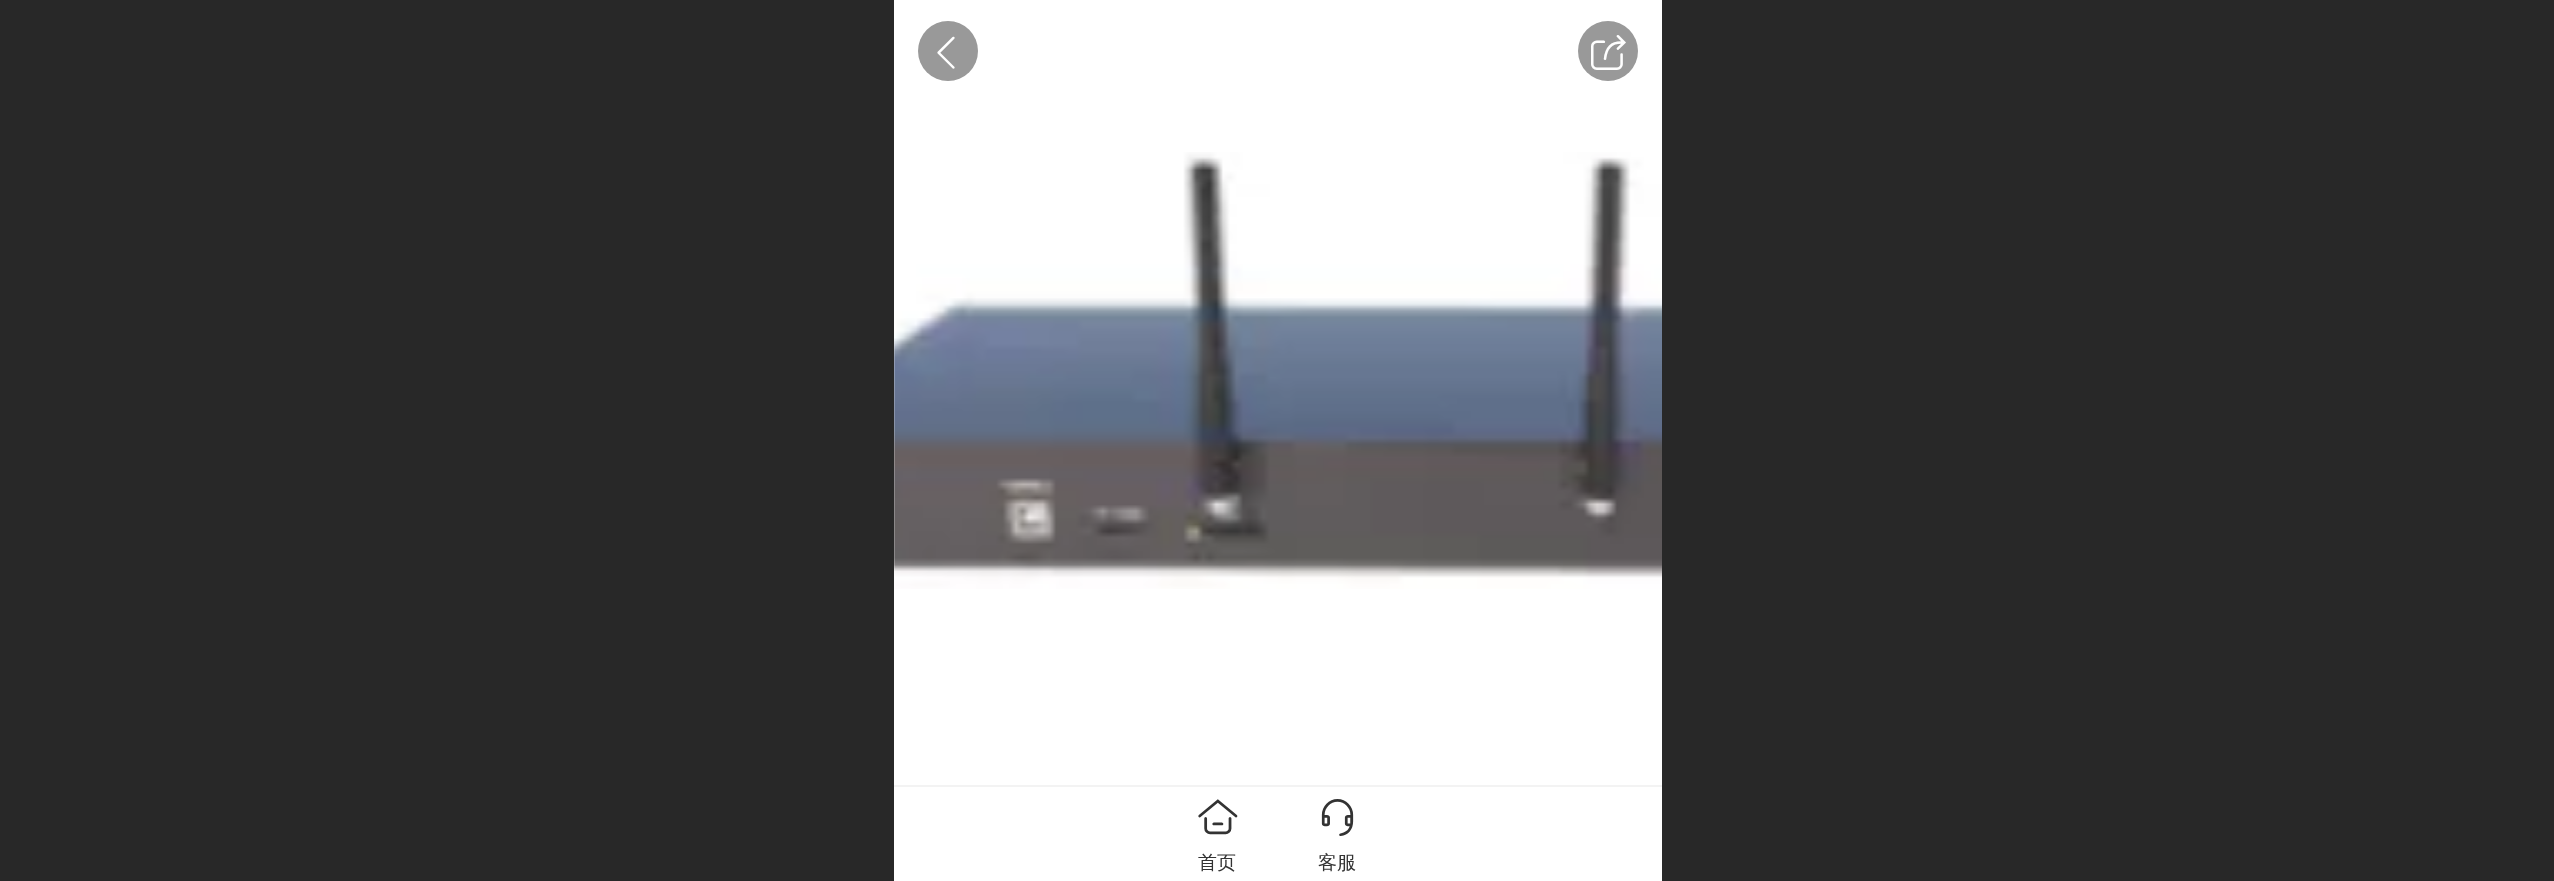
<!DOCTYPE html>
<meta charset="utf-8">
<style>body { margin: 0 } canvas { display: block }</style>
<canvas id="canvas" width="2554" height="881"></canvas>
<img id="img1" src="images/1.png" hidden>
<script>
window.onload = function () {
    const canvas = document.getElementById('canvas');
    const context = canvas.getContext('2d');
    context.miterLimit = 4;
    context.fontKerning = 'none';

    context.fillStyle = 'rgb(255, 255, 255)';
    context.fillRect(0, 0, 2554, 881);
    context.fillStyle = 'rgb(40, 40, 40)';
    context.fillRect(0, 0, 894, 881);
    context.fillStyle = 'rgb(153, 153, 153)';
    context.beginPath();
    context.arc(948, 51, 30, 0, 2 * Math.PI);
    context.fill();
    context.beginPath();
    context.arc(1608, 51, 30, 0, 2 * Math.PI);
    context.fill();
    context.drawImage(document.getElementById('img1'), 894, 152, 768, 437);
    context.fillStyle = 'rgb(243, 243, 243)';
    context.fillRect(894, 785, 768, 2);
    context.fillStyle = 'rgb(40, 40, 40)';
    context.fillRect(1662, 0, 892, 881);
    context.font = '32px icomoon';
    context.fillStyle = 'rgb(255, 255, 255)';
    context.fillText('򰊔', 930, 66);
    context.font = '35px icomoon';
    context.fillText('򰌑', 1591, 67);
    context.font = '39px icomoon';
    context.fillStyle = 'rgb(51, 51, 51)';
    context.fillText('򰌓', 1198, 833);
    context.font = '500 19px WenQuanYi Zen Hei';
    context.fillText('首页', 1198, 869);
    context.font = '37px icomoon';
    context.fillText('򰊘', 1319, 833);
    context.font = '500 19px WenQuanYi Zen Hei';
    context.fillText('客服', 1318, 869);
};
</script>
